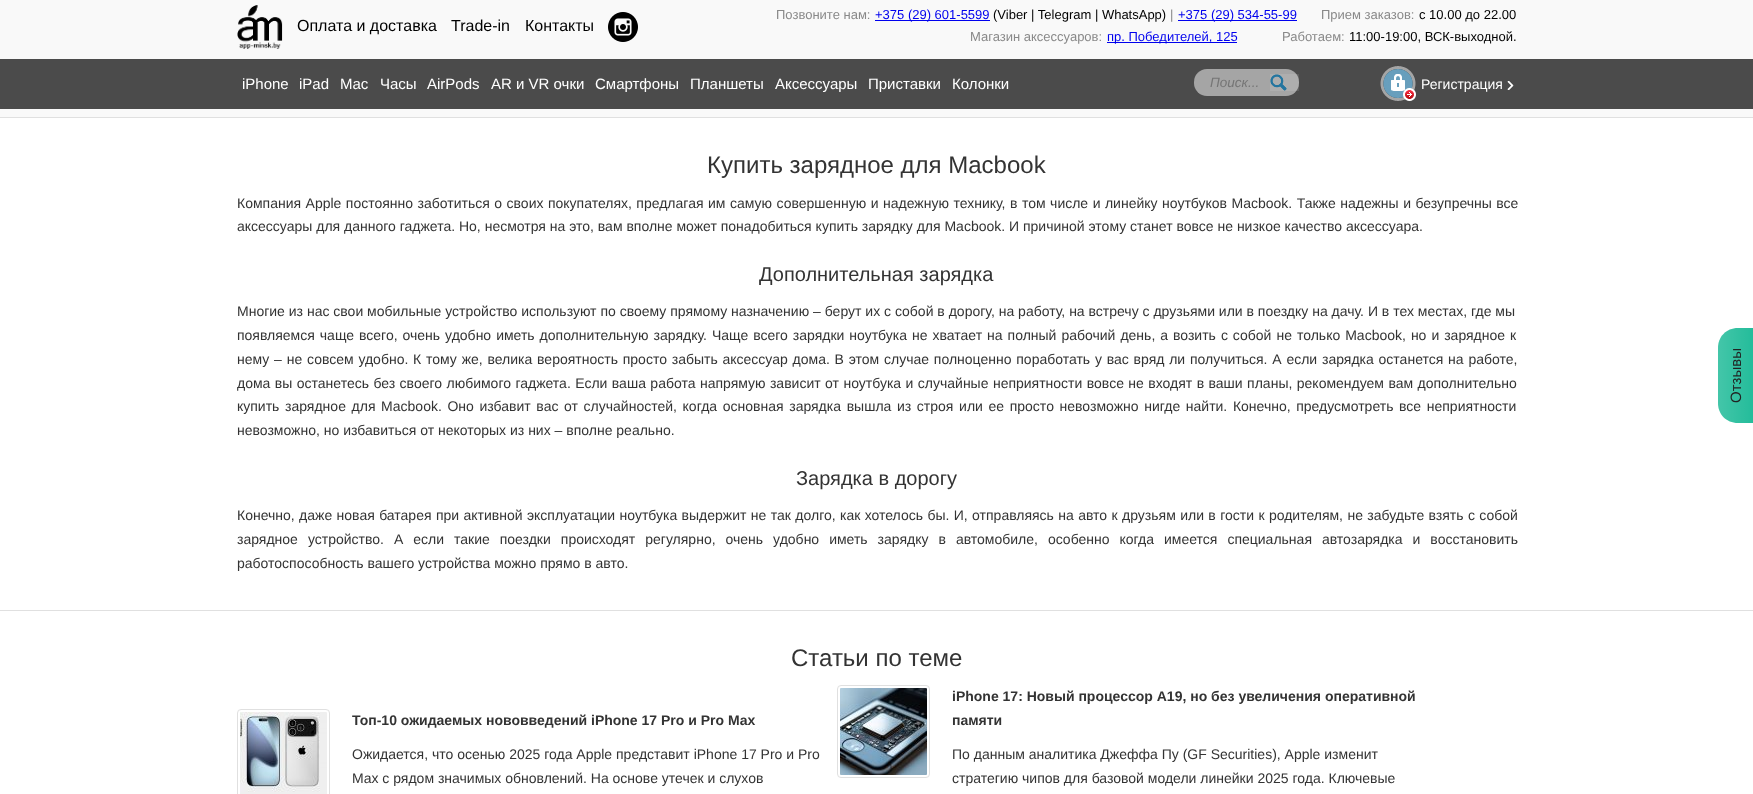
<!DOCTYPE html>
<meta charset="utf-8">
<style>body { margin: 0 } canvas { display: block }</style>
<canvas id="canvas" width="1753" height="794"></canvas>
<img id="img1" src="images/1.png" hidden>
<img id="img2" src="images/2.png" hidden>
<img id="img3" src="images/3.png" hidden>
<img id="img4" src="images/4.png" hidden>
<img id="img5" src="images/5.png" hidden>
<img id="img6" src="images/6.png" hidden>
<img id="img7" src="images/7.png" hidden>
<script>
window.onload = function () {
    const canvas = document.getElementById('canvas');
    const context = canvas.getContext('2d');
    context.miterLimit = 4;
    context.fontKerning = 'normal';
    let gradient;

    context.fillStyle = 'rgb(255, 255, 255)';
    context.fillRect(0, 0, 1753, 794);
    context.fillStyle = 'rgb(249, 249, 249)';
    context.fillRect(0, 0, 1753, 59);
    context.drawImage(document.getElementById('img1'), 237, 5, 46, 44);
    context.drawImage(document.getElementById('img2'), 608, 12, 30, 30);
    context.fillStyle = 'rgb(0, 0, 238)';
    context.fillRect(875, 20, 115, 1);
    context.fillRect(1178, 20, 119, 1);
    context.fillRect(1107, 42, 130, 1);
    context.fillStyle = 'rgb(75, 75, 75)';
    context.fillRect(0, 59, 1753, 50);
    context.fillStyle = 'rgb(165, 165, 165)';
    context.beginPath();
    context.roundRect(1194, 69, 105, 27, 13);
    context.fill();
    context.fillStyle = 'rgba(255, 255, 255, 0.1)';
    context.fillRect(1270, 74, 29, 17);
    context.drawImage(document.getElementById('img3'), 1270, 74, 17, 17);
    context.drawImage(document.getElementById('img4'), 1380, 66, 36, 35);
    context.drawImage(document.getElementById('img5'), 1507, 81, 7, 9);
    context.fillStyle = 'rgb(249, 249, 249)';
    context.fillRect(0, 109, 1753, 8);
    context.fillStyle = 'rgb(224, 224, 224)';
    context.fillRect(0, 117, 1753, 1);
    context.fillRect(0, 610, 1753, 1);
    context.fillStyle = 'rgb(35, 188, 154)';
    context.beginPath();
    context.moveTo(1718, 403);
    context.lineTo(1718, 348);
    context.bezierCurveTo(1718, 337, 1726, 328, 1738, 328);
    context.lineTo(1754, 328);
    context.lineTo(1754, 423);
    context.lineTo(1738, 423);
    context.bezierCurveTo(1726, 423, 1718, 414, 1718, 403);
    context.closePath();
    context.fill();
    gradient = context.createLinearGradient(1718, 375, 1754, 375);
    gradient.addColorStop(0, 'rgba(255, 255, 255, 0.15)');
    gradient.addColorStop(1, 'rgba(255, 255, 255, 0)');
    context.fillStyle = gradient;
    context.beginPath();
    context.moveTo(1718, 403);
    context.lineTo(1718, 348);
    context.bezierCurveTo(1718, 337, 1726, 328, 1738, 328);
    context.lineTo(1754, 328);
    context.lineTo(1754, 423);
    context.lineTo(1738, 423);
    context.bezierCurveTo(1726, 423, 1718, 414, 1718, 403);
    context.closePath();
    context.fill();
    context.beginPath();
    context.roundRect(237.5, 709.5, 92, 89, 3.5);
    context.strokeStyle = 'rgb(224, 224, 224)';
    context.stroke();
    context.drawImage(document.getElementById('img6'), 240, 712, 87, 82);
    context.beginPath();
    context.roundRect(837.5, 685.5, 92, 92, 3.5);
    context.stroke();
    context.drawImage(document.getElementById('img7'), 840, 688, 87, 87);
    context.font = '16px Liberation Sans';
    context.fillStyle = 'rgb(0, 0, 0)';
    context.fillText('Оплата и доставка', 297, 31);
    context.fillText('Trade-in', 451, 31);
    context.fillText('Контакты', 525, 31);
    context.font = '13px Liberation Sans';
    context.fillStyle = 'rgb(137, 137, 137)';
    context.fillText('Позвоните нам:', 776, 19);
    context.fillStyle = 'rgb(0, 0, 238)';
    context.fillText('+375 (29) 601-5599', 875, 19);
    context.fillStyle = 'rgb(0, 0, 0)';
    context.fillText('(Viber | Telegram | WhatsApp)', 993, 19);
    context.fillStyle = 'rgb(137, 137, 137)';
    context.fillText('|', 1170, 19);
    context.fillStyle = 'rgb(0, 0, 238)';
    context.fillText('+375 (29) 534-55-99', 1178, 19);
    context.fillStyle = 'rgb(137, 137, 137)';
    context.fillText('Прием заказов:', 1321, 19);
    context.fillStyle = 'rgb(0, 0, 0)';
    context.fillText('с 10.00 до 22.00', 1419, 19);
    context.fillStyle = 'rgb(137, 137, 137)';
    context.fillText('Магазин аксессуаров:', 970, 41);
    context.fillStyle = 'rgb(0, 0, 238)';
    context.fillText('пр. Победителей, 125', 1107, 41);
    context.fillStyle = 'rgb(137, 137, 137)';
    context.fillText('Работаем:', 1282, 41);
    context.fillStyle = 'rgb(0, 0, 0)';
    context.fillText('11:00-19:00, ВСК-выходной.', 1349, 41);
    context.font = 'italic 13.5px Liberation Sans';
    context.fillStyle = 'rgb(117, 117, 117)';
    context.fillText('Поиск...', 1210, 87);
    context.font = '15px Liberation Sans';
    context.fillStyle = 'rgb(255, 255, 255)';
    context.fillText('iPhone', 242, 89);
    context.fillText('iPad', 299, 89);
    context.fillText('Mac', 340, 89);
    context.fillText('Часы', 380, 89);
    context.fillText('AirPods', 427, 89);
    context.fillText('AR и VR очки', 491, 89);
    context.fillText('Смартфоны', 595, 89);
    context.fillText('Планшеты', 690, 89);
    context.fillText('Аксессуары', 775, 89);
    context.fillText('Приставки', 868, 89);
    context.fillText('Колонки', 952, 89);
    context.font = '14px Liberation Sans';
    context.fillText('Регистрация', 1421, 89);
    context.font = '24px Liberation Sans';
    context.fillStyle = 'rgb(51, 51, 51)';
    context.fillText('Купить зарядное для Macbook', 707, 173);
    context.wordSpacing = '0.6px';
    context.font = '14px Liberation Sans';
    context.fillText('Компания Apple постоянно заботиться о своих покупателях, предлагая им самую совершенную и надежную технику, в том числе и линейку ноутбуков Macbook. Также надежны и безупречны все', 237, 208);
    context.wordSpacing = '0px';
    context.fillText('аксессуары для данного гаджета. Но, несмотря на это, вам вполне может понадобиться купить зарядку для Macbook. И причиной этому станет вовсе не низкое качество аксессуара.', 237, 231);
    context.font = '20px Liberation Sans';
    context.fillText('Дополнительная зарядка', 759, 281);
    context.font = '14px Liberation Sans';
    context.fillText('Многие из нас свои мобильные устройство используют по своему прямому назначению – берут их с собой в дорогу, на работу, на встречу с друзьями или в поездку на дачу. И в тех местах, где мы', 237, 316);
    context.wordSpacing = '1.1px';
    context.fillText('появляемся чаще всего, очень удобно иметь дополнительную зарядку. Чаще всего зарядки ноутбука не хватает на полный рабочий день, а возить с собой не только Macbook, но и зарядное к', 237, 340);
    context.wordSpacing = '0.9px';
    context.fillText('нему – не совсем удобно. К тому же, велика вероятность просто забыть аксессуар дома. В этом случае полноценно поработать у вас вряд ли получиться. А если зарядка останется на работе,', 237, 364);
    context.wordSpacing = '0.55px';
    context.fillText('дома вы останетесь без своего любимого гаджета. Если ваша работа напрямую зависит от ноутбука и случайные неприятности вовсе не входят в ваши планы, рекомендуем вам дополнительно', 237, 388);
    context.wordSpacing = '1.75px';
    context.fillText('купить зарядное для Macbook. Оно избавит вас от случайностей, когда основная зарядка вышла из строя или ее просто невозможно нигде найти. Конечно, предусмотреть все неприятности', 237, 411);
    context.wordSpacing = '0px';
    context.fillText('невозможно, но избавиться от некоторых из них – вполне реально.', 237, 435);
    context.font = '20px Liberation Sans';
    context.fillText('Зарядка в дорогу', 796, 485);
    context.wordSpacing = '0.5px';
    context.font = '14px Liberation Sans';
    context.fillText('Конечно, даже новая батарея при активной эксплуатации ноутбука выдержит не так долго, как хотелось бы. И, отправляясь на авто к друзьям или в гости к родителям, не забудьте взять с собой', 237, 520);
    context.wordSpacing = '6.1px';
    context.fillText('зарядное устройство. А если такие поездки происходят регулярно, очень удобно иметь зарядку в автомобиле, особенно когда имеется специальная автозарядка и восстановить', 237, 544);
    context.wordSpacing = '0px';
    context.fillText('работоспособность вашего устройства можно прямо в авто.', 237, 568);
    context.font = '15px Liberation Sans';
    context.fillStyle = 'rgb(34, 34, 34)';
    context.save();
    context.translate(1741, 403);
    context.rotate(-90 * Math.PI / 180);
    context.fillText('Отзывы', 0, 0);
    context.restore();
    context.font = '24px Liberation Sans';
    context.fillStyle = 'rgb(51, 51, 51)';
    context.fillText('Статьи по теме', 791, 666);
    context.font = 'bold 14px Liberation Sans';
    context.fillText('Топ-10 ожидаемых нововведений iPhone 17 Pro и Pro Max', 352, 725);
    context.font = '14px Liberation Sans';
    context.fillText('Ожидается, что осенью 2025 года Apple представит iPhone 17 Pro и Pro', 352, 759);
    context.fillText('Max с рядом значимых обновлений. На основе утечек и слухов', 352, 783);
    context.font = 'bold 14px Liberation Sans';
    context.fillText('iPhone 17: Новый процессор A19, но без увеличения оперативной', 952, 701);
    context.fillText('памяти', 952, 725);
    context.font = '14px Liberation Sans';
    context.fillText('По данным аналитика Джеффа Пу (GF Securities), Apple изменит', 952, 759);
    context.fillText('стратегию чипов для базовой модели линейки 2025 года. Ключевые', 952, 783);
};
</script>
